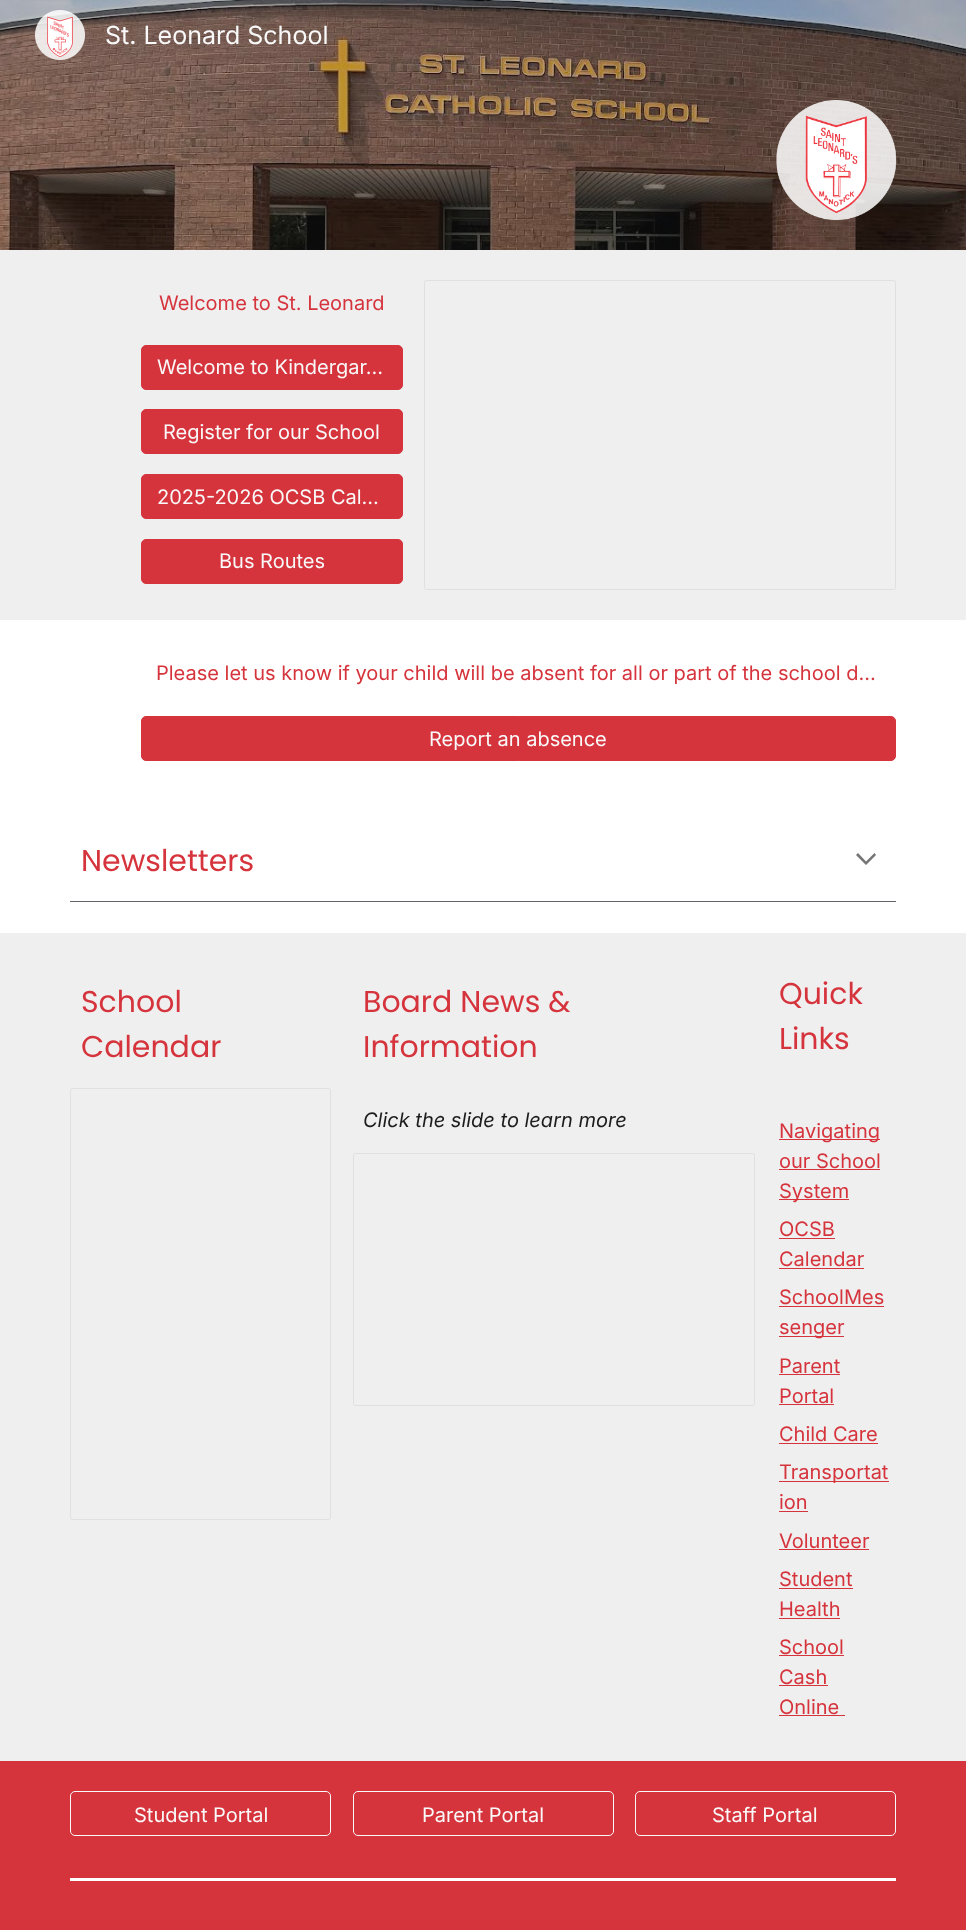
<!DOCTYPE html>
<meta charset="utf-8">
<style>body { margin: 0 } canvas { display: block }</style>
<canvas id="canvas" width="966" height="1930"></canvas>
<img id="img1" src="images/2.png" hidden>
<img id="img2" src="images/1.png" hidden>
<img id="img3" src="images/3.png" hidden>
<script>
window.onload = function () {
    const canvas = document.getElementById('canvas');
    const context = canvas.getContext('2d');
    context.miterLimit = 4;
    context.fontKerning = 'normal';

    context.fillStyle = 'rgb(255, 255, 255)';
    context.fillRect(0, 0, 966, 1930);
    context.drawImage(document.getElementById('img1'), 0, 0, 966, 250);
    context.drawImage(document.getElementById('img2'), 35, 10, 50, 50);
    context.drawImage(document.getElementById('img3'), 776, 100, 121, 120);
    context.fillStyle = 'rgb(239, 239, 240)';
    context.fillRect(0, 250, 966, 370);
    context.fillStyle = 'rgb(214, 52, 60)';
    context.beginPath();
    context.roundRect(141.5, 345.5, 261, 44, 4.5);
    context.fill();
    context.strokeStyle = 'rgb(214, 52, 60)';
    context.stroke();
    context.beginPath();
    context.roundRect(141.5, 409.5, 261, 44, 4.5);
    context.fill();
    context.stroke();
    context.beginPath();
    context.roundRect(141.5, 474.5, 261, 44, 4.5);
    context.fill();
    context.stroke();
    context.beginPath();
    context.roundRect(141.5, 539.5, 261, 44, 4.5);
    context.fill();
    context.stroke();
    context.beginPath();
    context.roundRect(424.5, 280.5, 471, 309, 2);
    context.strokeStyle = 'rgb(224, 224, 224)';
    context.stroke();
    context.beginPath();
    context.roundRect(141.5, 716.5, 754, 44, 4.5);
    context.fill();
    context.strokeStyle = 'rgb(214, 52, 60)';
    context.stroke();
    context.fillStyle = 'rgb(95, 99, 104)';
    context.fillRect(70, 901, 826, 1);
    context.fillStyle = 'rgb(117, 117, 117)';
    context.beginPath();
    context.moveTo(858, 853);
    context.lineTo(856, 855);
    context.lineTo(866, 865);
    context.lineTo(876, 855);
    context.lineTo(874.5, 853);
    context.lineTo(866, 861.5);
    context.fill();
    context.fillStyle = 'rgb(239, 239, 240)';
    context.fillRect(0, 933, 966, 828);
    context.beginPath();
    context.roundRect(70.5, 1088.5, 260, 431, 2);
    context.strokeStyle = 'rgb(224, 224, 224)';
    context.stroke();
    context.beginPath();
    context.roundRect(353.5, 1153.5, 401, 252, 2);
    context.stroke();
    context.fillStyle = 'rgb(214, 52, 60)';
    context.fillRect(779, 1139, 101, 1);
    context.fillRect(779, 1169, 101, 1);
    context.fillRect(779, 1199, 70, 1);
    context.fillRect(779, 1238, 56, 1);
    context.fillRect(779, 1268, 85, 1);
    context.fillRect(779, 1306, 105, 1);
    context.fillRect(779, 1336, 65, 1);
    context.fillRect(779, 1374, 61, 1);
    context.fillRect(779, 1404, 55, 1);
    context.fillRect(779, 1443, 99, 1);
    context.fillRect(779, 1481, 110, 1);
    context.fillRect(779, 1511, 29, 1);
    context.fillRect(779, 1549, 90, 1);
    context.fillRect(779, 1588, 74, 1);
    context.fillRect(779, 1618, 61, 1);
    context.fillRect(779, 1655, 65, 1);
    context.fillRect(779, 1685, 49, 1);
    context.fillRect(779, 1715, 66, 1);
    context.fillRect(0, 1761, 966, 169);
    context.beginPath();
    context.roundRect(70.5, 1791.5, 260, 44, 4.5);
    context.strokeStyle = 'rgb(249, 249, 249)';
    context.stroke();
    context.beginPath();
    context.roundRect(353.5, 1791.5, 260, 44, 4.5);
    context.stroke();
    context.beginPath();
    context.roundRect(635.5, 1791.5, 260, 44, 4.5);
    context.stroke();
    context.fillStyle = 'rgb(255, 255, 255)';
    context.fillRect(70, 1878, 826, 3);
    context.font = '25px Inter';
    context.fillStyle = 'rgb(249, 249, 249)';
    context.fillText('St. Leonard School', 105, 44);
    context.font = '20px Inter';
    context.fillStyle = 'rgb(214, 52, 60)';
    context.fillText('Welcome to St. Leonard', 159, 310);
    context.fillStyle = 'rgb(249, 249, 249)';
    context.fillText('Welcome to Kindergar…', 157, 374);
    context.fillText('Register for our School', 163, 439);
    context.fillText('2025-2026 OCSB Cal…', 157, 504);
    context.fillText('Bus Routes', 219, 568);
    context.fillStyle = 'rgb(214, 52, 60)';
    context.fillText('Please let us know if your child will be absent for all or part of the school d…', 156, 680);
    context.fillStyle = 'rgb(249, 249, 249)';
    context.fillText('Report an absence', 429, 746);
    context.font = '30px Poppins';
    context.fillStyle = 'rgb(214, 52, 60)';
    context.fillText('Newsletters', 81, 871);
    context.fillText('School', 81, 1012);
    context.fillText('Calendar', 81, 1057);
    context.fillText('Board News &', 363, 1012);
    context.fillText('Information', 363, 1057);
    context.font = 'italic 20px Inter';
    context.fillStyle = 'rgb(28, 28, 28)';
    context.fillText('Click the slide to learn more', 363, 1127);
    context.font = '30px Poppins';
    context.fillStyle = 'rgb(214, 52, 60)';
    context.fillText('Quick', 779, 1004);
    context.fillText('Links', 779, 1049);
    context.font = '20px Inter';
    context.fillText('Navigating', 779, 1138);
    context.fillText('our School', 779, 1168);
    context.fillText('System', 779, 1198);
    context.fillText('OCSB', 779, 1236);
    context.fillText('Calendar', 779, 1266);
    context.fillText('SchoolMes', 779, 1304);
    context.fillText('senger', 779, 1334);
    context.fillText('Parent', 779, 1373);
    context.fillText('Portal', 779, 1403);
    context.fillText('Child Care', 779, 1441);
    context.fillText('Transportat', 779, 1479);
    context.fillText('ion', 779, 1509);
    context.fillText('Volunteer', 779, 1548);
    context.fillText('Student', 779, 1586);
    context.fillText('Health', 779, 1616);
    context.fillText('School', 779, 1654);
    context.fillText('Cash', 779, 1684);
    context.fillText('Online', 779, 1714);
    context.fillStyle = 'rgb(249, 249, 249)';
    context.fillText('Student Portal', 134, 1822);
    context.fillText('Parent Portal', 422, 1822);
    context.fillText('Staff Portal', 712, 1822);
};
</script>
